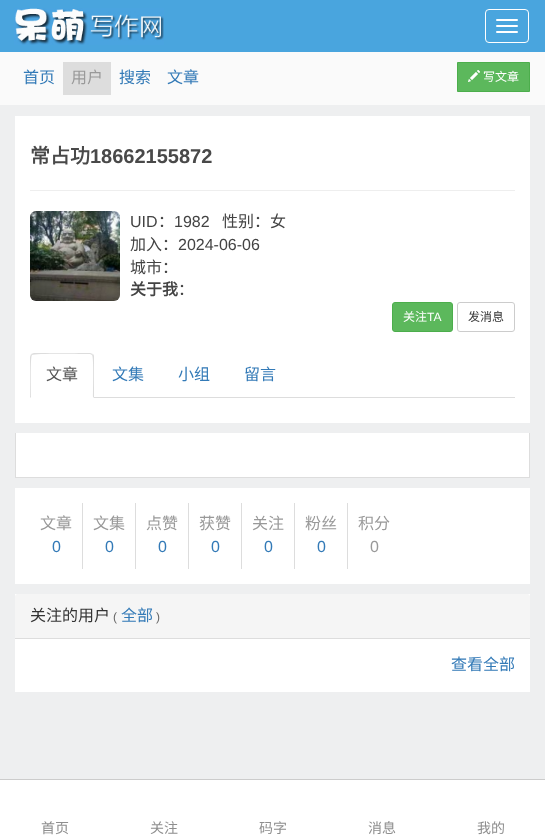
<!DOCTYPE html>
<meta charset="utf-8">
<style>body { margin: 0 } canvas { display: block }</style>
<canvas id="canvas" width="545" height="838"></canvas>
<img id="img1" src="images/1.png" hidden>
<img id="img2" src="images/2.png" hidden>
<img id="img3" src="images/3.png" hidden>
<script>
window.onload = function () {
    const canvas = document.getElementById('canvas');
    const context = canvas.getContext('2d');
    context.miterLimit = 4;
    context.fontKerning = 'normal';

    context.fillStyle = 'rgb(238, 239, 240)';
    context.fillRect(0, 0, 545, 838);
    context.fillStyle = 'rgb(73, 165, 222)';
    context.fillRect(0, 0, 545, 52);
    context.drawImage(document.getElementById('img1'), 14, 8, 150, 37);
    context.beginPath();
    context.roundRect(485.5, 9.5, 43, 33, 3.5);
    context.strokeStyle = 'rgb(255, 255, 255)';
    context.stroke();
    context.fillStyle = 'rgb(255, 255, 255)';
    context.beginPath();
    context.roundRect(496, 19, 22, 2, 1);
    context.fill();
    context.beginPath();
    context.roundRect(496, 25, 22, 2, 1);
    context.fill();
    context.beginPath();
    context.roundRect(496, 31, 22, 2, 1);
    context.fill();
    context.fillStyle = 'rgb(250, 250, 250)';
    context.fillRect(0, 52, 545, 53);
    context.fillStyle = 'rgb(221, 221, 221)';
    context.fillRect(63, 62, 48, 33);
    context.fillStyle = 'rgb(92, 184, 92)';
    context.beginPath();
    context.rect(457.5, 62.5, 72, 29);
    context.fill();
    context.strokeStyle = 'rgb(76, 174, 76)';
    context.stroke();
    context.drawImage(document.getElementById('img2'), 468, 70, 12, 12);
    context.fillStyle = 'rgb(255, 255, 255)';
    context.fillRect(15, 116, 515, 307);
    context.fillStyle = 'rgb(238, 238, 238)';
    context.fillRect(30, 190, 485, 1);
    context.drawImage(document.getElementById('img3'), 30, 211, 90, 90);
    context.fillStyle = 'rgb(92, 184, 92)';
    context.beginPath();
    context.roundRect(392.5, 302.5, 60, 29, 2.5);
    context.fill();
    context.stroke();
    context.beginPath();
    context.roundRect(457.5, 302.5, 57, 29, 2.5);
    context.strokeStyle = 'rgb(204, 204, 204)';
    context.stroke();
    context.fillStyle = 'rgb(221, 221, 221)';
    context.fillRect(94, 397, 421, 1);
    context.beginPath();
    context.moveTo(34, 353);
    context.lineTo(31, 354);
    context.lineTo(32, 355);
    context.bezierCurveTo(34, 353, 85, 354, 90, 354);
    context.lineTo(92, 355);
    context.lineTo(93, 354);
    context.lineTo(90, 353);
    context.closePath();
    context.fill();
    context.beginPath();
    context.moveTo(94, 398);
    context.lineTo(94, 357);
    context.bezierCurveTo(94, 356, 94, 355, 93, 354);
    context.lineTo(92, 355);
    context.bezierCurveTo(94, 357, 93, 392, 93, 397);
    context.closePath();
    context.fill();
    context.beginPath();
    context.moveTo(30, 398);
    context.lineTo(31, 397);
    context.bezierCurveTo(31, 392, 30, 357, 32, 355);
    context.lineTo(31, 354);
    context.lineTo(30, 357);
    context.closePath();
    context.fill();
    context.fillStyle = 'rgb(255, 255, 255)';
    context.fillRect(16, 433, 513, 44);
    context.fillStyle = 'rgb(221, 221, 221)';
    context.fillRect(529, 433, 1, 45);
    context.fillRect(15, 477, 515, 1);
    context.fillRect(15, 433, 1, 45);
    context.fillStyle = 'rgb(255, 255, 255)';
    context.fillRect(15, 488, 515, 96);
    context.fillStyle = 'rgb(221, 221, 221)';
    context.fillRect(82, 503, 1, 66);
    context.fillRect(135, 503, 1, 66);
    context.fillRect(188, 503, 1, 66);
    context.fillRect(241, 503, 1, 66);
    context.fillRect(294, 503, 1, 66);
    context.fillRect(347, 503, 1, 66);
    context.fillStyle = 'rgb(255, 255, 255)';
    context.fillRect(15, 594, 515, 98);
    context.fillStyle = 'rgb(245, 245, 245)';
    context.beginPath();
    context.roundRect(15, 594, 515, 45, [3, 3, 0, 0]);
    context.fill();
    context.fillStyle = 'rgb(221, 221, 221)';
    context.fillRect(15, 638, 515, 1);
    context.fillStyle = 'rgb(255, 255, 255)';
    context.fillRect(0, 780, 545, 58);
    context.fillStyle = 'rgb(204, 204, 204)';
    context.fillRect(0, 779, 545, 1);
    context.font = '16px Noto Sans CJK SC';
    context.fillStyle = 'rgb(51, 122, 183)';
    context.fillText('首页', 23, 83);
    context.fillStyle = 'rgb(153, 153, 153)';
    context.fillText('用户', 71, 83);
    context.fillStyle = 'rgb(51, 122, 183)';
    context.fillText('搜索', 119, 83);
    context.fillText('文章', 167, 83);
    context.font = '12px Noto Sans CJK SC';
    context.fillStyle = 'rgb(255, 255, 255)';
    context.fillText('写文章', 483, 81);
    context.font = 'bold 20px Noto Sans CJK SC';
    context.fillStyle = 'rgb(73, 73, 73)';
    context.fillText('常占功', 30, 163);
    context.font = 'bold 20px Liberation Sans';
    context.fillText('18662155872', 90, 163);
    context.font = '16px Liberation Sans';
    context.fillStyle = 'rgb(67, 67, 67)';
    context.fillText('UID', 130, 227);
    context.font = '16px Noto Sans CJK SC';
    context.fillText('：', 158, 227);
    context.font = '16px Liberation Sans';
    context.fillText('1982', 174, 227);
    context.font = '16px Noto Sans CJK SC';
    context.fillText('性别：女', 222, 227);
    context.fillText('加入：', 130, 250);
    context.font = '16px Liberation Sans';
    context.fillText('2024-06-06', 178, 250);
    context.font = '16px Noto Sans CJK SC';
    context.fillText('城市：', 130, 273);
    context.font = 'bold 16px Noto Sans CJK SC';
    context.fillText('关于我', 130, 295);
    context.font = '16px Noto Sans CJK SC';
    context.fillText('：', 178, 295);
    context.font = '12px Noto Sans CJK SC';
    context.fillStyle = 'rgb(255, 255, 255)';
    context.fillText('关注', 403, 321);
    context.font = '12px Liberation Sans';
    context.fillText('TA', 427, 321);
    context.font = '12px Noto Sans CJK SC';
    context.fillStyle = 'rgb(51, 51, 51)';
    context.fillText('发消息', 468, 321);
    context.font = '16px Noto Sans CJK SC';
    context.fillStyle = 'rgb(85, 85, 85)';
    context.fillText('文章', 46, 380);
    context.fillStyle = 'rgb(51, 122, 183)';
    context.fillText('文集', 112, 380);
    context.fillText('小组', 178, 380);
    context.fillText('留言', 244, 380);
    context.fillStyle = 'rgb(153, 153, 153)';
    context.fillText('文章', 40, 529);
    context.font = '16px Liberation Sans';
    context.fillStyle = 'rgb(51, 122, 183)';
    context.fillText('0', 52, 552);
    context.font = '16px Noto Sans CJK SC';
    context.fillStyle = 'rgb(153, 153, 153)';
    context.fillText('文集', 93, 529);
    context.font = '16px Liberation Sans';
    context.fillStyle = 'rgb(51, 122, 183)';
    context.fillText('0', 105, 552);
    context.font = '16px Noto Sans CJK SC';
    context.fillStyle = 'rgb(153, 153, 153)';
    context.fillText('点赞', 146, 529);
    context.font = '16px Liberation Sans';
    context.fillStyle = 'rgb(51, 122, 183)';
    context.fillText('0', 158, 552);
    context.font = '16px Noto Sans CJK SC';
    context.fillStyle = 'rgb(153, 153, 153)';
    context.fillText('获赞', 199, 529);
    context.font = '16px Liberation Sans';
    context.fillStyle = 'rgb(51, 122, 183)';
    context.fillText('0', 211, 552);
    context.font = '16px Noto Sans CJK SC';
    context.fillStyle = 'rgb(153, 153, 153)';
    context.fillText('关注', 252, 529);
    context.font = '16px Liberation Sans';
    context.fillStyle = 'rgb(51, 122, 183)';
    context.fillText('0', 264, 552);
    context.font = '16px Noto Sans CJK SC';
    context.fillStyle = 'rgb(153, 153, 153)';
    context.fillText('粉丝', 305, 529);
    context.font = '16px Liberation Sans';
    context.fillStyle = 'rgb(51, 122, 183)';
    context.fillText('0', 317, 552);
    context.font = '16px Noto Sans CJK SC';
    context.fillStyle = 'rgb(153, 153, 153)';
    context.fillText('积分', 358, 529);
    context.font = '16px Liberation Sans';
    context.fillText('0', 370, 552);
    context.font = '16px Noto Sans CJK SC';
    context.fillStyle = 'rgb(51, 51, 51)';
    context.fillText('关注的用户', 30, 621);
    context.font = '12px Liberation Sans';
    context.fillStyle = 'rgb(102, 102, 102)';
    context.fillText('(', 113, 621);
    context.font = '16px Noto Sans CJK SC';
    context.fillStyle = 'rgb(51, 122, 183)';
    context.fillText('全部', 121, 621);
    context.font = '12px Liberation Sans';
    context.fillStyle = 'rgb(102, 102, 102)';
    context.fillText(')', 156, 621);
    context.font = '16px Noto Sans CJK SC';
    context.fillStyle = 'rgb(51, 122, 183)';
    context.fillText('查看全部', 451, 670);
    context.font = '14px Noto Sans CJK SC';
    context.fillStyle = 'rgb(142, 142, 142)';
    context.fillText('首页', 41, 833);
    context.fillText('关注', 150, 833);
    context.fillText('码字', 259, 833);
    context.fillText('消息', 368, 833);
    context.fillText('我的', 477, 833);
};
</script>
